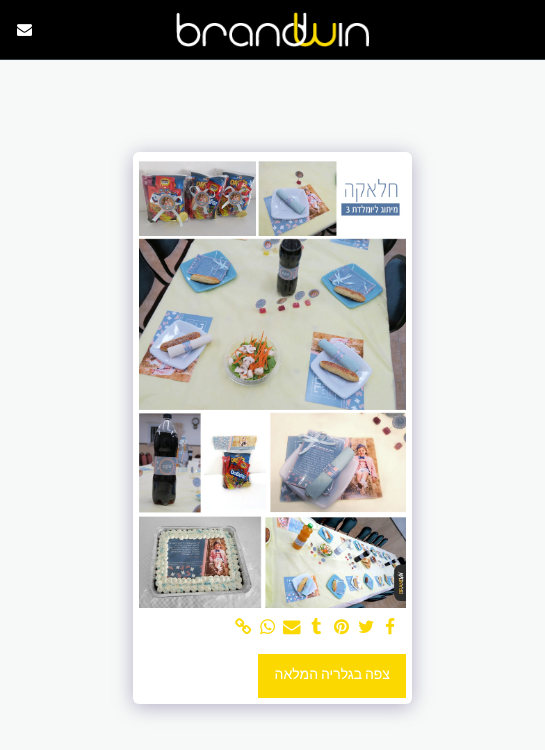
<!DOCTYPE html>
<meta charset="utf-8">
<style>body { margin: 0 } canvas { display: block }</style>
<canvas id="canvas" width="545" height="750"></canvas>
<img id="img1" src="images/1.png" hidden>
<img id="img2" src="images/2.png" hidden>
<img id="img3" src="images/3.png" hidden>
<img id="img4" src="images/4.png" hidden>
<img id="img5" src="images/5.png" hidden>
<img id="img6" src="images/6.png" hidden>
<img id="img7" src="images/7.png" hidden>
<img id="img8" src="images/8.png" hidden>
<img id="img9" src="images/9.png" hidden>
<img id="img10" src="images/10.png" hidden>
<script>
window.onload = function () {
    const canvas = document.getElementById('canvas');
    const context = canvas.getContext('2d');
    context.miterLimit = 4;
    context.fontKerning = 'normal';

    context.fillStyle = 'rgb(247, 249, 248)';
    context.fillRect(0, 0, 545, 750);
    context.fillStyle = 'rgb(0, 0, 0)';
    context.fillRect(0, 0, 545, 59);
    context.fillStyle = 'rgb(48, 56, 65)';
    context.fillRect(0, 59, 545, 1);
    context.drawImage(document.getElementById('img1'), 176, 12, 193, 35);
    context.drawImage(document.getElementById('img2'), 17, 24, 15, 12);
    context.fillStyle = 'rgba(77, 63, 122, 0.4)';
    context.filter = 'blur(10px)';
    context.beginPath();
    context.roundRect(133, 155, 279, 552, 6);
    context.fill();
    context.filter = 'none';
    context.fillStyle = 'rgb(255, 255, 255)';
    context.beginPath();
    context.roundRect(133, 152, 279, 552, 6);
    context.fill();
    context.drawImage(document.getElementById('img3'), 139, 161, 267, 447);
    context.drawImage(document.getElementById('img4'), 385, 618, 10, 17);
    context.drawImage(document.getElementById('img5'), 358, 620, 16, 13);
    context.drawImage(document.getElementById('img6'), 334, 619, 15, 16);
    context.drawImage(document.getElementById('img7'), 311, 618, 10, 17);
    context.drawImage(document.getElementById('img8'), 283, 620, 18, 15);
    context.drawImage(document.getElementById('img9'), 260, 619, 15, 16);
    context.drawImage(document.getElementById('img10'), 235, 618, 16, 17);
    context.fillStyle = 'rgb(250, 216, 0)';
    context.fillRect(258, 654, 148, 44);
    context.wordSpacing = '-1px';
    context.direction = 'rtl';
    context.font = '14px Liberation Sans';
    context.fillStyle = 'rgb(255, 255, 255)';
    context.fillText('צפה בגלריה המלאה', 390, 679);
};
</script>
